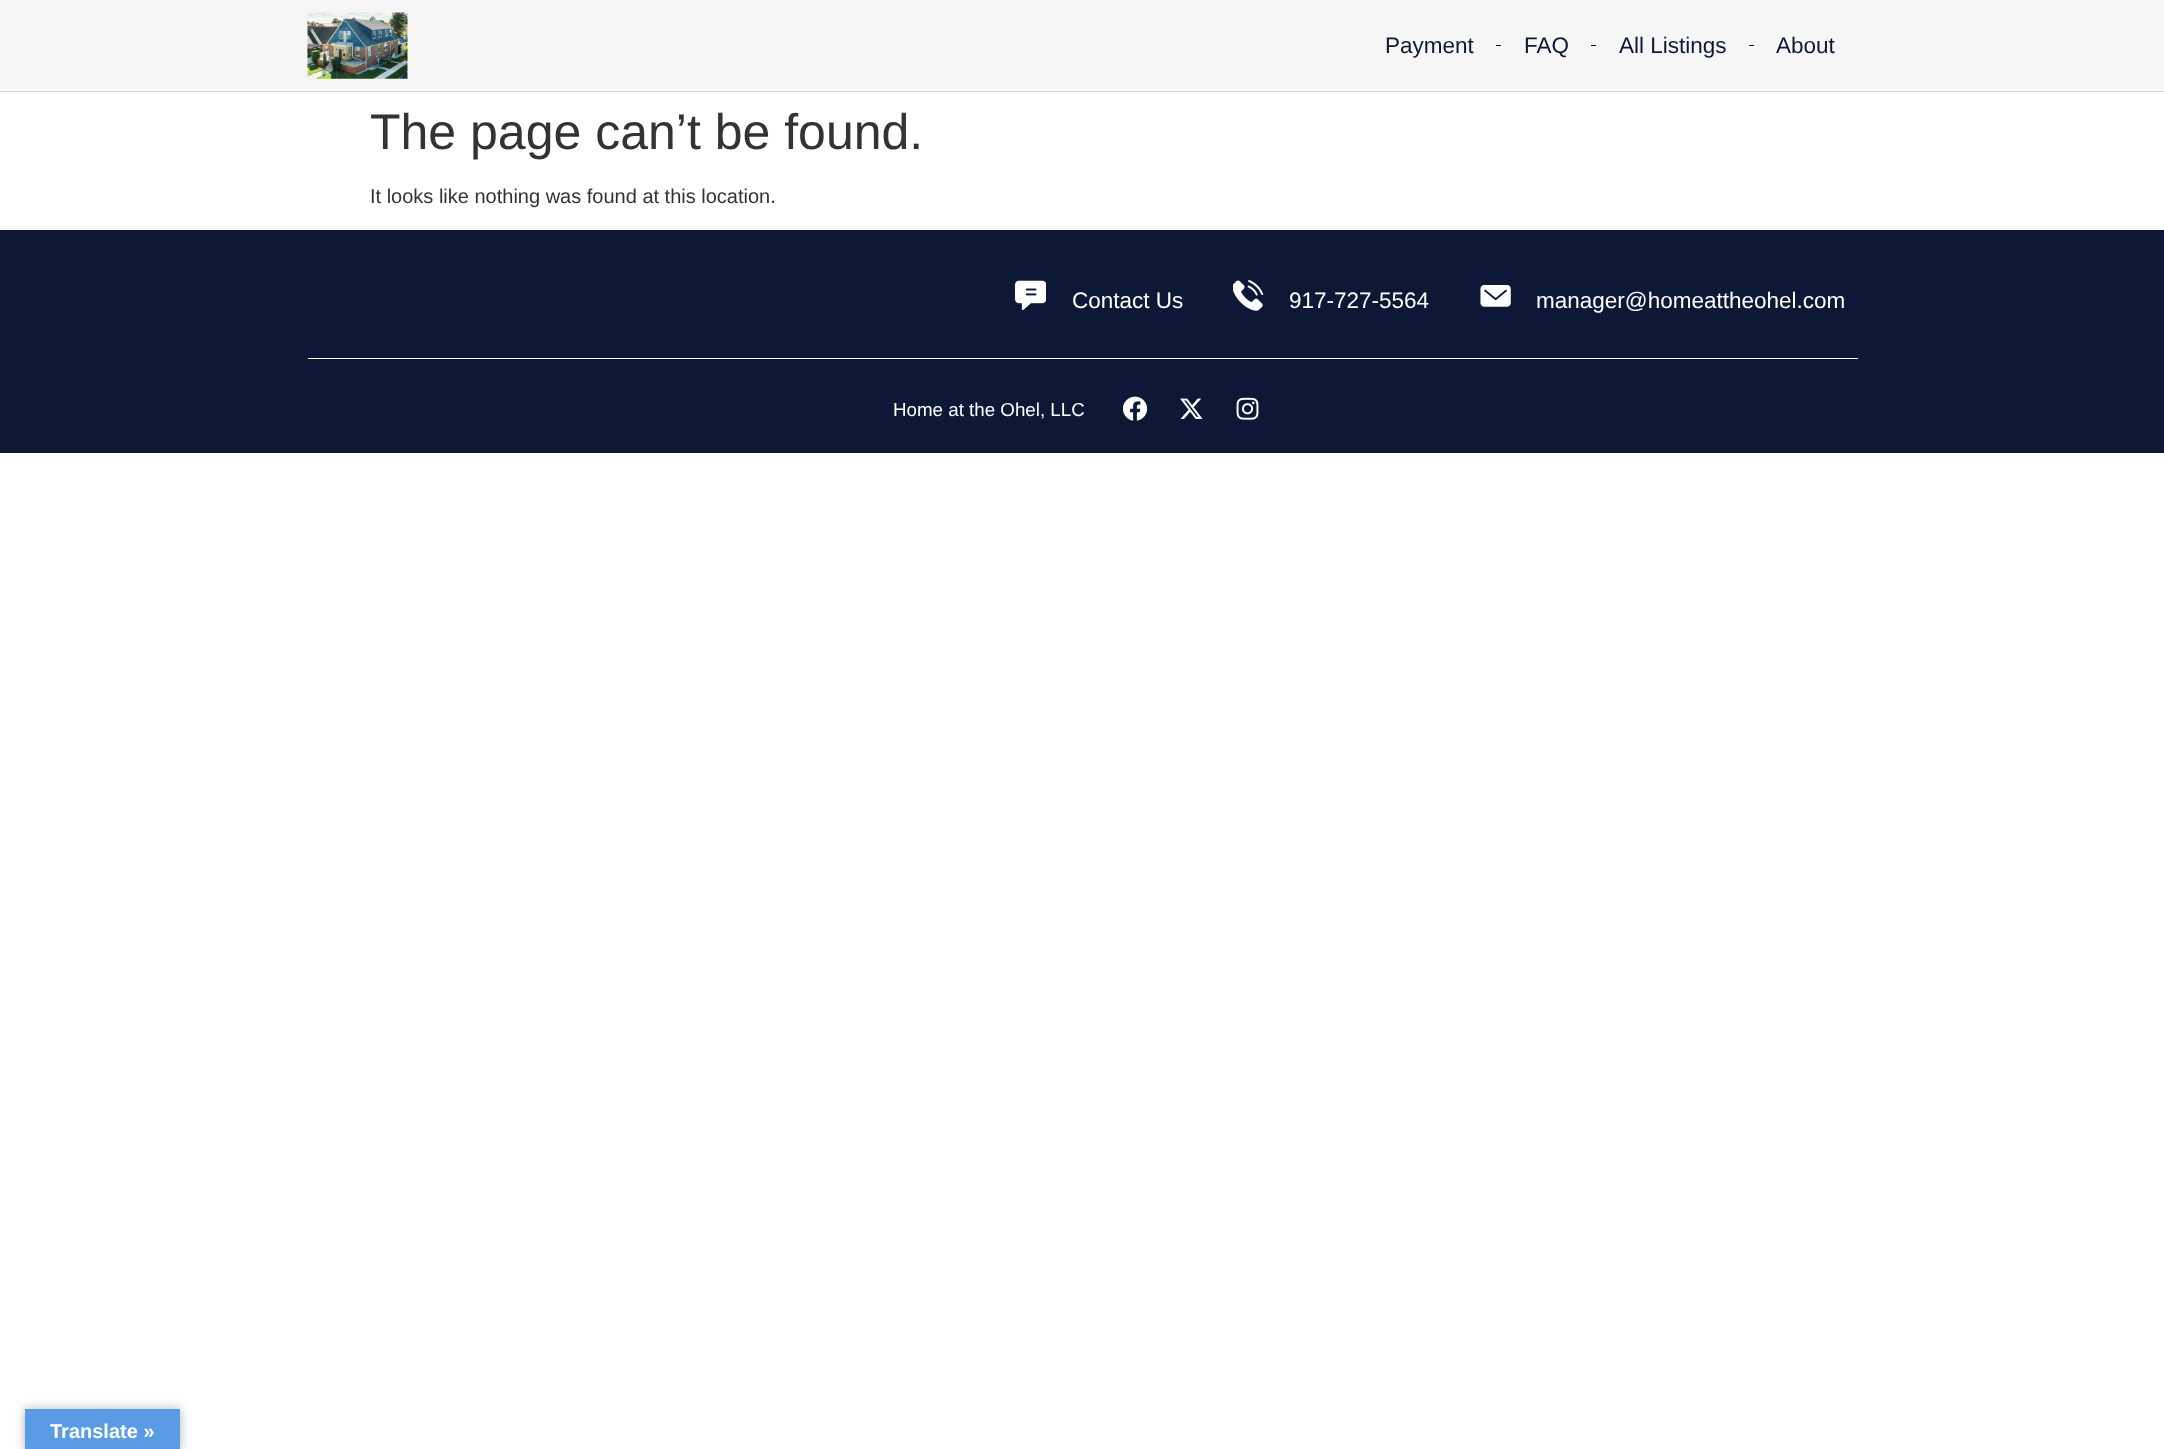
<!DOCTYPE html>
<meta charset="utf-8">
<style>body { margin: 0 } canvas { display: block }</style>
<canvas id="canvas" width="2164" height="1449"></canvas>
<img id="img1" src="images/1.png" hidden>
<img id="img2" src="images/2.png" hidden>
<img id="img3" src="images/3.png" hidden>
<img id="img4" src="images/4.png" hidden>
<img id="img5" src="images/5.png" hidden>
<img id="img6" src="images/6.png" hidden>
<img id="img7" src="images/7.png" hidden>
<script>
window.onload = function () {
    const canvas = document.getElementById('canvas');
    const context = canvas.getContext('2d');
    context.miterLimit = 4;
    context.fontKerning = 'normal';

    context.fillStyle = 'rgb(255, 255, 255)';
    context.fillRect(0, 0, 2164, 1449);
    context.fillStyle = 'rgb(246, 246, 246)';
    context.fillRect(0, 0, 2164, 91);
    context.fillStyle = 'rgb(209, 213, 219)';
    context.fillRect(0, 91, 2164, 1);
    context.drawImage(document.getElementById('img1'), 307, 12, 101, 67);
    context.fillStyle = 'rgb(12, 24, 54)';
    context.fillRect(1496, 45, 5, 1);
    context.fillRect(1591, 45, 5, 1);
    context.fillRect(1749, 45, 5, 1);
    context.fillRect(0, 230, 2164, 223);
    context.drawImage(document.getElementById('img2'), 1015, 280, 31, 30);
    context.drawImage(document.getElementById('img3'), 1233, 280, 31, 31);
    context.drawImage(document.getElementById('img4'), 1480, 285, 31, 22);
    context.fillStyle = 'rgb(255, 255, 255)';
    context.fillRect(308, 358, 1550, 1);
    context.drawImage(document.getElementById('img5'), 1123, 396, 25, 25);
    context.drawImage(document.getElementById('img6'), 1180, 398, 23, 21);
    context.drawImage(document.getElementById('img7'), 1236, 397, 23, 23);
    context.fillStyle = 'rgba(0, 0, 0, 0.3)';
    context.filter = 'blur(5.5px)';
    context.beginPath();
    context.rect(25, 1409, 155, 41);
    context.fill();
    context.filter = 'none';
    context.fillStyle = 'rgb(89, 156, 228)';
    context.fillRect(25, 1409, 155, 40);
    context.font = '22.5px Liberation Sans';
    context.fillStyle = 'rgb(12, 24, 54)';
    context.fillText('Payment', 1385, 53);
    context.fillText('FAQ', 1524, 53);
    context.fillText('All Listings', 1619, 53);
    context.fillText('About', 1776, 53);
    context.font = '50px Liberation Sans';
    context.fillStyle = 'rgb(51, 51, 51)';
    context.fillText('The page can’t be found.', 370, 149);
    context.font = '20px Liberation Sans';
    context.fillText('It looks like nothing was found at this location.', 370, 203);
    context.font = '22.5px Liberation Sans';
    context.fillStyle = 'rgb(255, 255, 255)';
    context.fillText('Contact Us', 1072, 308);
    context.fillText('917-727-5564', 1289, 308);
    context.fillText('manager@homeattheohel.com', 1536, 308);
    context.font = '18.75px Liberation Sans';
    context.fillText('Home at the Ohel, LLC', 893, 416);
    context.font = 'bold 20px Liberation Sans';
    context.fillText('Translate »', 50, 1438);
};
</script>
